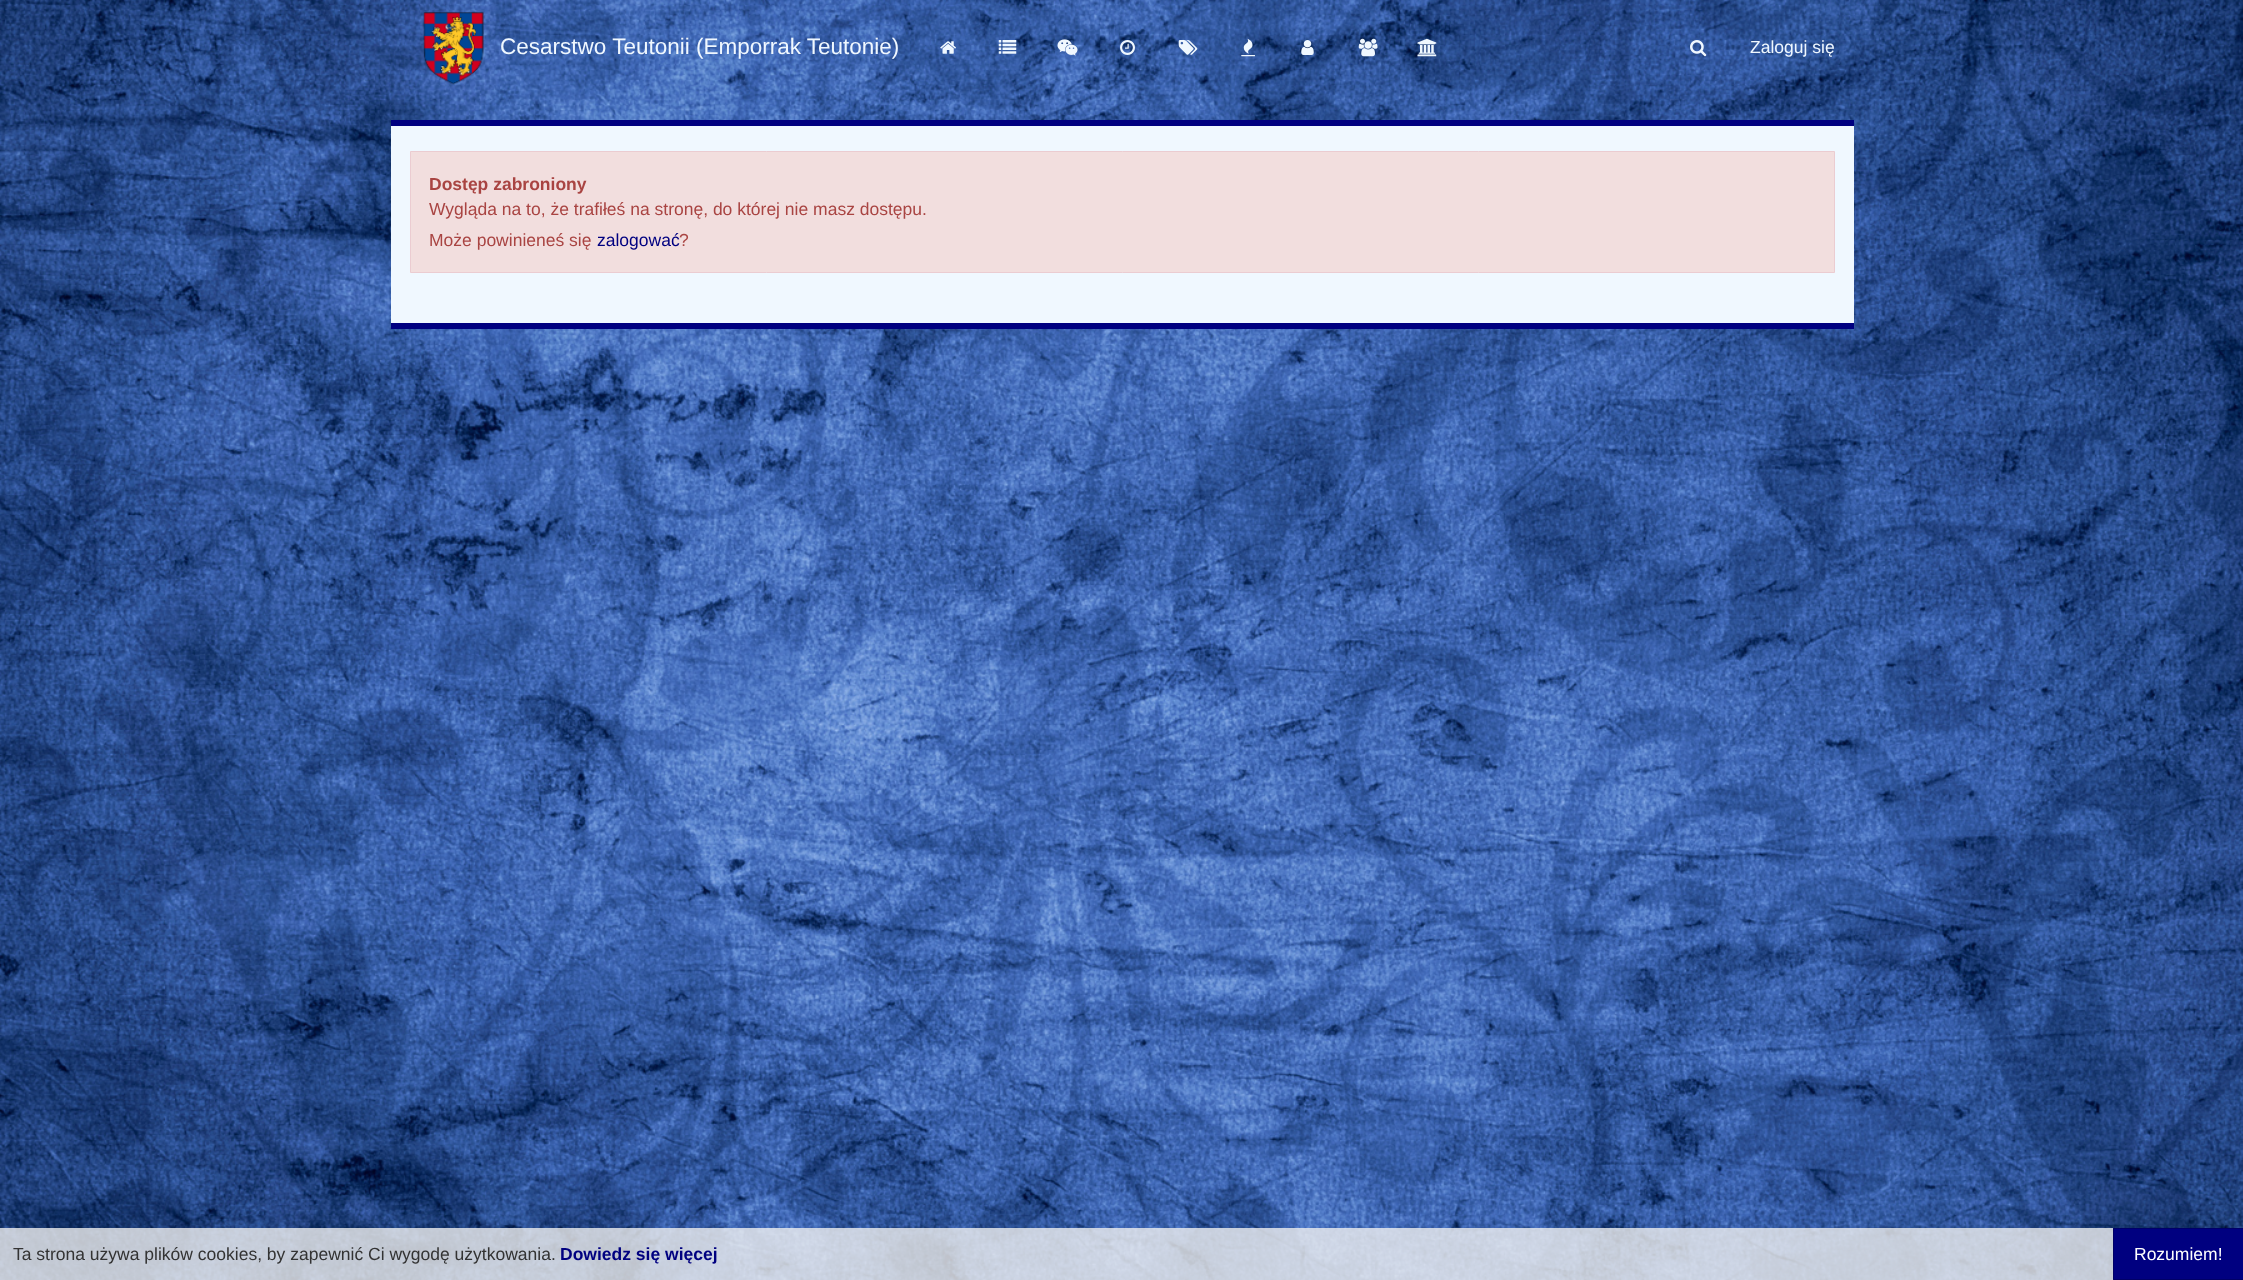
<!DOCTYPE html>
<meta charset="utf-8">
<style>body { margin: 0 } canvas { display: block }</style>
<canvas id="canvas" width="2243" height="1280"></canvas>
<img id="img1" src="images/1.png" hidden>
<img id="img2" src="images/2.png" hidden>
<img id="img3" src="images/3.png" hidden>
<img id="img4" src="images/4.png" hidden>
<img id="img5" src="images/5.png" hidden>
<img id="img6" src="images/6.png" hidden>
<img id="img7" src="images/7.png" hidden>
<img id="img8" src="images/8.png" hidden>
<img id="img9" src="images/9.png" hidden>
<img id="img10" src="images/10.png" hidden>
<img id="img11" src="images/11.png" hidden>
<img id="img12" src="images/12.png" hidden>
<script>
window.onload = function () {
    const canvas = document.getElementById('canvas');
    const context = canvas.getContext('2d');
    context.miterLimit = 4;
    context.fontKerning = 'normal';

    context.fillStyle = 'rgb(255, 255, 255)';
    context.fillRect(0, 0, 2243, 1280);
    context.drawImage(document.getElementById('img1'), 0, 0, 2243, 1280);
    context.drawImage(document.getElementById('img2'), 423, 12, 61, 73);
    context.drawImage(document.getElementById('img3'), 940, 41, 16, 13);
    context.drawImage(document.getElementById('img4'), 998, 40, 19, 14);
    context.drawImage(document.getElementById('img5'), 1057, 39, 21, 17);
    context.drawImage(document.getElementById('img6'), 1120, 40, 15, 15);
    context.drawImage(document.getElementById('img7'), 1178, 40, 20, 15);
    context.drawImage(document.getElementById('img8'), 1241, 38, 14, 19);
    context.drawImage(document.getElementById('img9'), 1301, 40, 13, 15);
    context.drawImage(document.getElementById('img10'), 1358, 38, 20, 19);
    context.drawImage(document.getElementById('img11'), 1417, 38, 20, 19);
    context.drawImage(document.getElementById('img12'), 1690, 40, 17, 17);
    context.fillStyle = 'rgb(240, 248, 255)';
    context.fillRect(391, 126, 1463, 197);
    context.fillStyle = 'rgb(0, 0, 128)';
    context.fillRect(391, 120, 1463, 6);
    context.fillRect(391, 323, 1463, 6);
    context.fillStyle = 'rgb(242, 222, 222)';
    context.beginPath();
    context.rect(410.5, 151.5, 1424, 121);
    context.fill();
    context.strokeStyle = 'rgb(235, 204, 209)';
    context.stroke();
    context.fillStyle = 'rgba(240, 240, 240, 0.8)';
    context.fillRect(0, 1228, 2113, 52);
    context.fillStyle = 'rgb(0, 0, 128)';
    context.beginPath();
    context.rect(2113.5, 1228.5, 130, 51);
    context.fill();
    context.strokeStyle = 'rgb(0, 0, 103)';
    context.stroke();
    context.font = '22.5px Liberation Sans';
    context.fillStyle = 'rgb(240, 248, 255)';
    context.fillText('Cesarstwo Teutonii (Emporrak Teutonie)', 500, 54);
    context.font = '17.5px Liberation Sans';
    context.fillText('Zaloguj się', 1750, 53);
    context.font = 'bold 17.5px Liberation Sans';
    context.fillStyle = 'rgb(169, 68, 66)';
    context.fillText('Dostęp zabroniony', 429, 190);
    context.font = '17.5px Liberation Sans';
    context.fillText('Wygląda na to, że trafiłeś na stronę, do której nie masz dostępu.', 429, 215);
    context.fillText('Może powinieneś się', 429, 246);
    context.fillStyle = 'rgb(0, 0, 128)';
    context.fillText('zalogować', 597, 246);
    context.fillStyle = 'rgb(169, 68, 66)';
    context.fillText('?', 679, 246);
    context.fillStyle = 'rgb(51, 51, 51)';
    context.fillText('Ta strona używa plików cookies, by zapewnić Ci wygodę użytkowania.', 13, 1260);
    context.font = 'bold 17.5px Liberation Sans';
    context.fillStyle = 'rgb(0, 0, 128)';
    context.fillText('Dowiedz się więcej', 560, 1260);
    context.font = '17.5px Liberation Sans';
    context.fillStyle = 'rgb(255, 255, 255)';
    context.fillText('Rozumiem!', 2134, 1260);
};
</script>
